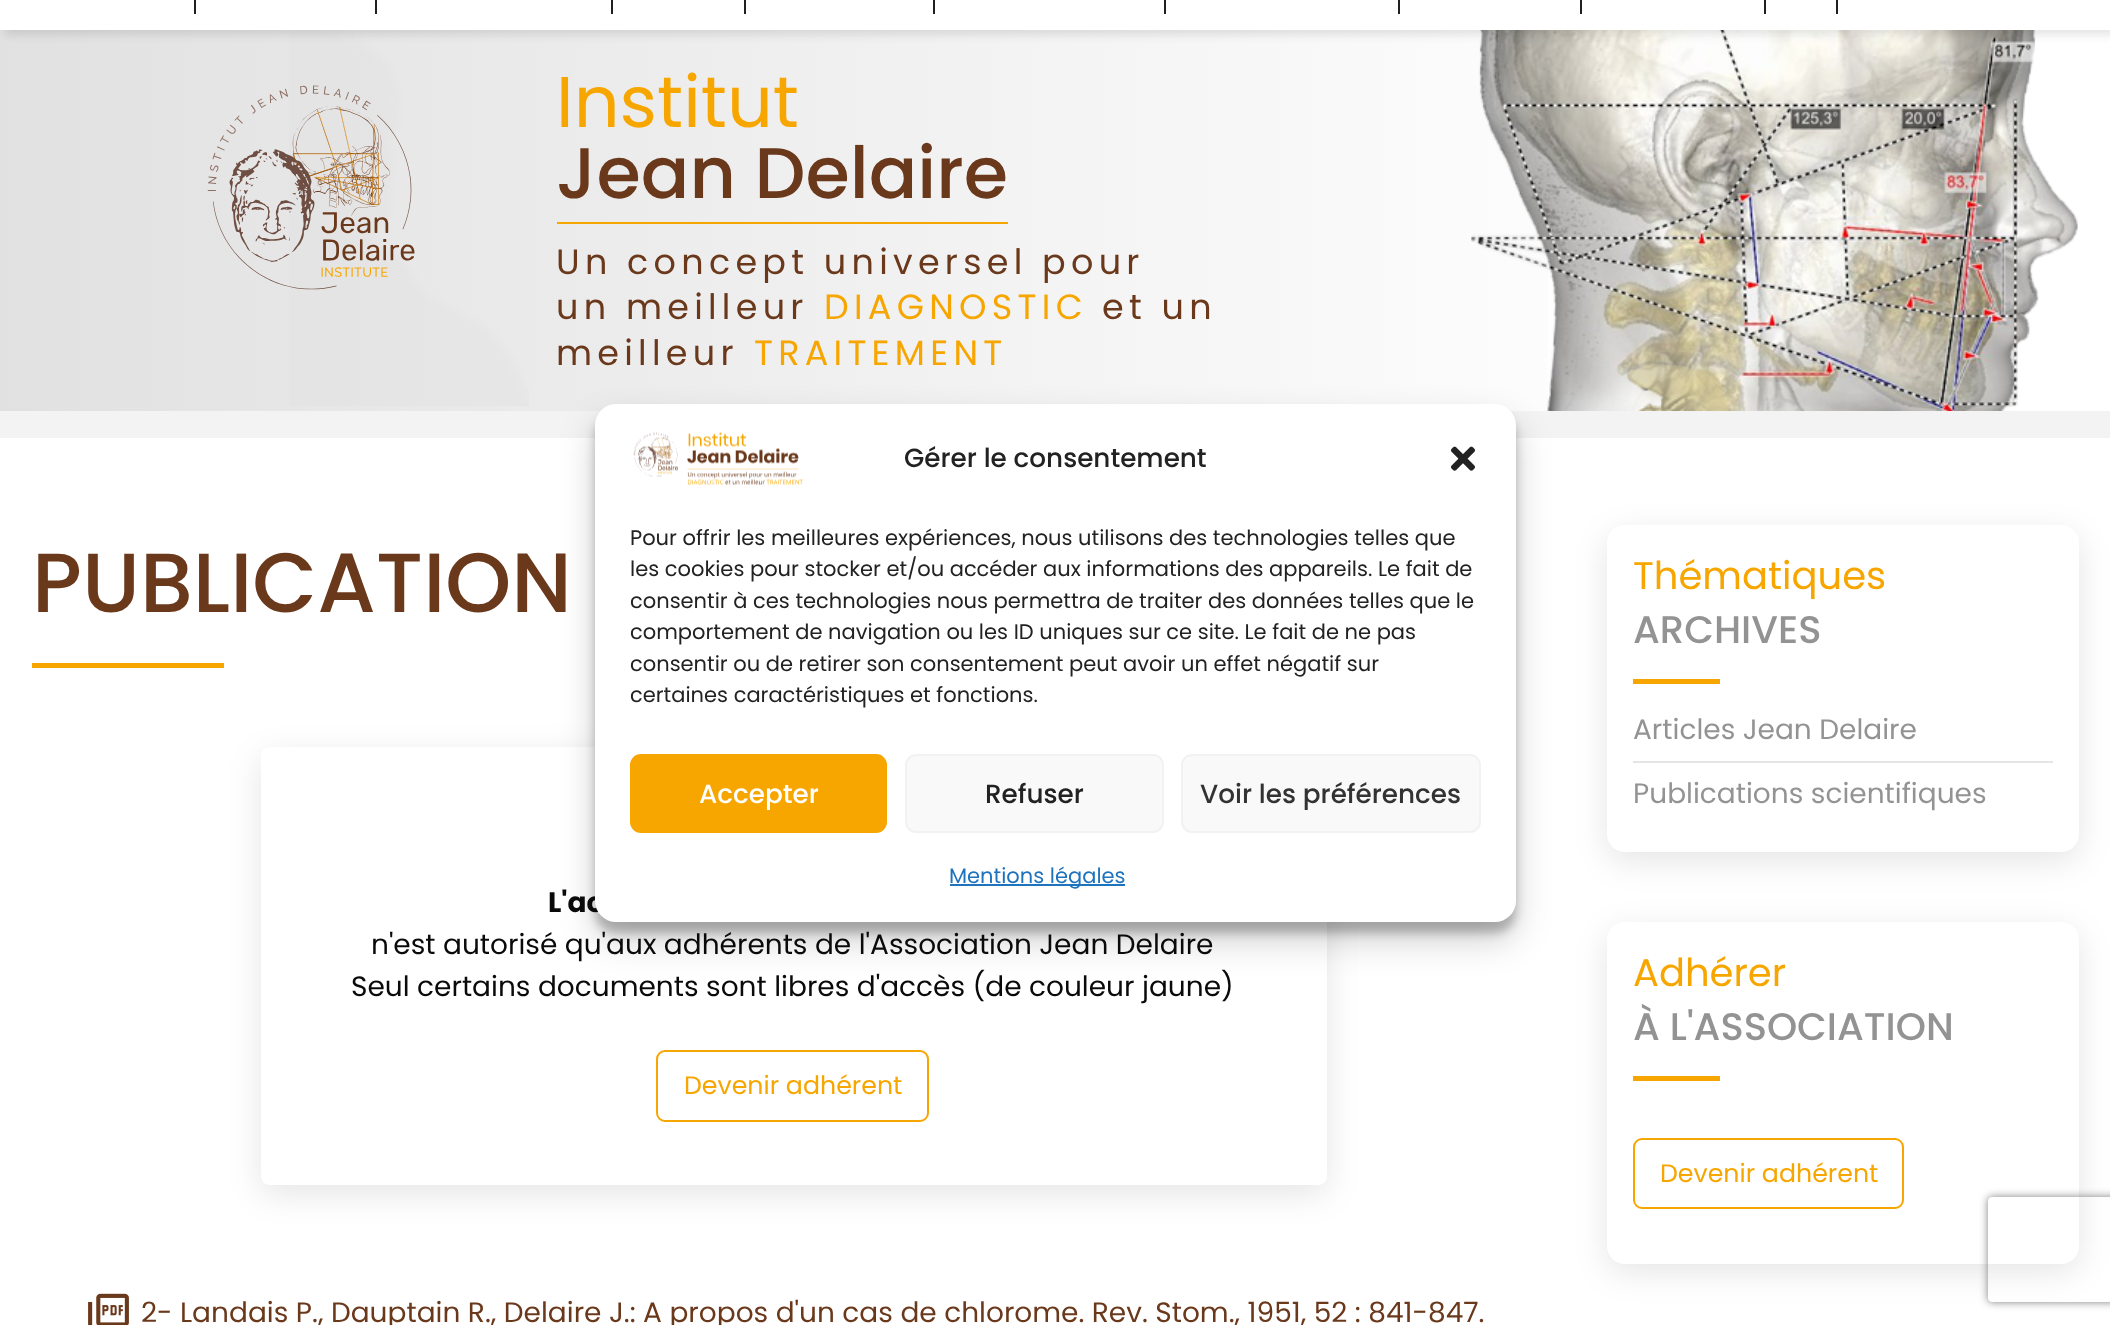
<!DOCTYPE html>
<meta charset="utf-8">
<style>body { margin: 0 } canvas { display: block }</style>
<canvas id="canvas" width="2110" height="1325"></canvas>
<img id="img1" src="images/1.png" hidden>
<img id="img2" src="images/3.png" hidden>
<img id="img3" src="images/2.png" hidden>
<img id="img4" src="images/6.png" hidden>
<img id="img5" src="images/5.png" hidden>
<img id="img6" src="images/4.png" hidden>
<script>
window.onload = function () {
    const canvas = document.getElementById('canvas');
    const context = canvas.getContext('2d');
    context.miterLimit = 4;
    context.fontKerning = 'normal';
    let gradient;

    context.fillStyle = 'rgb(255, 255, 255)';
    context.fillRect(0, 0, 2110, 1325);
    gradient = context.createLinearGradient(0, 221, 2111, 220);
    gradient.addColorStop(0, 'rgb(226, 225, 225)');
    gradient.addColorStop(0.8, 'rgb(255, 255, 255)');
    context.fillStyle = gradient;
    context.fillRect(0, 30, 1548, 381);
    context.drawImage(document.getElementById('img1'), 289, 30, 240, 376);
    context.drawImage(document.getElementById('img2'), 1471, 30, 607, 381);
    context.fillStyle = 'rgba(0, 0, 0, 0.1)';
    context.filter = 'blur(4.5px)';
    context.beginPath();
    context.rect(5, -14, 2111, 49);
    context.fill();
    context.filter = 'none';
    context.fillStyle = 'rgb(255, 255, 255)';
    context.fillRect(0, 0, 2110, 30);
    context.fillStyle = 'rgb(32, 32, 32)';
    context.fillRect(194, 0, 2, 14);
    context.fillRect(375, 0, 2, 14);
    context.fillRect(611, 0, 2, 14);
    context.fillRect(744, 0, 2, 14);
    context.fillRect(933, 0, 2, 14);
    context.fillRect(1164, 0, 2, 14);
    context.fillRect(1398, 0, 2, 14);
    context.fillRect(1580, 0, 2, 14);
    context.fillRect(1764, 0, 2, 14);
    context.fillRect(1836, 0, 2, 14);
    context.fillStyle = 'rgb(243, 243, 243)';
    context.fillRect(0, 411, 2110, 27);
    context.drawImage(document.getElementById('img3'), 207, 85, 208, 205);
    context.fillStyle = 'rgb(247, 166, 0)';
    context.fillRect(557, 222, 451, 2);
    context.fillStyle = 'rgba(0, 0, 0, 0.23)';
    context.filter = 'blur(5px)';
    context.beginPath();
    context.roundRect(595, 415, 921, 518, 21);
    context.fill();
    context.filter = 'none';
    context.fillStyle = 'rgba(0, 0, 0, 0.19)';
    context.filter = 'blur(17.5px)';
    context.beginPath();
    context.roundRect(595, 422, 921, 518, 21);
    context.fill();
    context.filter = 'none';
    context.fillStyle = 'rgb(247, 166, 0)';
    context.fillRect(32, 663, 192, 5);
    context.save();
    context.beginPath();
    context.moveTo(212, 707);
    context.lineTo(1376, 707);
    context.lineTo(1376, 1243);
    context.lineTo(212, 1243);
    context.closePath();
    context.moveTo(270, 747);
    context.lineTo(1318, 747);
    context.bezierCurveTo(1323, 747, 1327, 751, 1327, 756);
    context.lineTo(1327, 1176);
    context.bezierCurveTo(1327, 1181, 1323, 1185, 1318, 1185);
    context.lineTo(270, 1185);
    context.bezierCurveTo(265, 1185, 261, 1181, 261, 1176);
    context.lineTo(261, 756);
    context.bezierCurveTo(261, 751, 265, 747, 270, 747);
    context.closePath();
    context.clip('evenodd');
    context.fillStyle = 'rgba(0, 0, 0, 0.1)';
    context.filter = 'blur(16px)';
    context.beginPath();
    context.roundRect(261, 756, 1066, 438, 9);
    context.fill();
    context.filter = 'none';
    context.restore();
    context.beginPath();
    context.roundRect(657, 1051, 271, 70, 8);
    context.strokeStyle = 'rgb(247, 166, 0)';
    context.lineWidth = 2;
    context.stroke();
    context.drawImage(document.getElementById('img4'), 88, 1293, 41, 32);
    context.save();
    context.beginPath();
    context.moveTo(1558, 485);
    context.lineTo(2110, 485);
    context.lineTo(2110, 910);
    context.lineTo(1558, 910);
    context.closePath();
    context.moveTo(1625, 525);
    context.lineTo(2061, 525);
    context.bezierCurveTo(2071, 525, 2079, 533, 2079, 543);
    context.lineTo(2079, 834);
    context.bezierCurveTo(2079, 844, 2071, 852, 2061, 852);
    context.lineTo(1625, 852);
    context.bezierCurveTo(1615, 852, 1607, 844, 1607, 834);
    context.lineTo(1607, 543);
    context.bezierCurveTo(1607, 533, 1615, 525, 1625, 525);
    context.closePath();
    context.clip('evenodd');
    context.fillStyle = 'rgba(0, 0, 0, 0.1)';
    context.filter = 'blur(16px)';
    context.beginPath();
    context.roundRect(1607, 534, 472, 327, 18);
    context.fill();
    context.filter = 'none';
    context.restore();
    context.fillRect(1633, 679, 87, 5);
    context.fillStyle = 'rgb(229, 229, 229)';
    context.fillRect(1633, 761, 420, 2);
    context.save();
    context.beginPath();
    context.moveTo(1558, 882);
    context.lineTo(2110, 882);
    context.lineTo(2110, 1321);
    context.lineTo(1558, 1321);
    context.closePath();
    context.moveTo(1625, 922);
    context.lineTo(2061, 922);
    context.bezierCurveTo(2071, 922, 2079, 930, 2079, 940);
    context.lineTo(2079, 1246);
    context.bezierCurveTo(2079, 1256, 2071, 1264, 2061, 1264);
    context.lineTo(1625, 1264);
    context.bezierCurveTo(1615, 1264, 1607, 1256, 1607, 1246);
    context.lineTo(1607, 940);
    context.bezierCurveTo(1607, 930, 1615, 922, 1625, 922);
    context.closePath();
    context.clip('evenodd');
    context.fillStyle = 'rgba(0, 0, 0, 0.1)';
    context.filter = 'blur(16px)';
    context.beginPath();
    context.roundRect(1607, 931, 472, 341, 18);
    context.fill();
    context.filter = 'none';
    context.restore();
    context.fillStyle = 'rgb(247, 166, 0)';
    context.fillRect(1633, 1076, 87, 5);
    context.beginPath();
    context.roundRect(1634, 1139, 269, 69, 8);
    context.stroke();
    context.save();
    context.beginPath();
    context.moveTo(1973, 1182);
    context.lineTo(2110, 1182);
    context.lineTo(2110, 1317);
    context.lineTo(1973, 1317);
    context.closePath();
    context.moveTo(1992, 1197);
    context.lineTo(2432, 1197);
    context.bezierCurveTo(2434, 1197, 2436, 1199, 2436, 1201);
    context.lineTo(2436, 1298);
    context.bezierCurveTo(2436, 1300, 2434, 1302, 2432, 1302);
    context.lineTo(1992, 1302);
    context.bezierCurveTo(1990, 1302, 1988, 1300, 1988, 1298);
    context.lineTo(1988, 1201);
    context.bezierCurveTo(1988, 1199, 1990, 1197, 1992, 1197);
    context.closePath();
    context.clip('evenodd');
    context.fillStyle = 'rgb(128, 128, 128)';
    context.filter = 'blur(4.5px)';
    context.beginPath();
    context.roundRect(1988, 1197, 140, 105, 4);
    context.fill();
    context.filter = 'none';
    context.restore();
    context.font = '71.75px Poppins';
    context.fillText('Institut', 556, 127);
    context.font = '500 71.75px Poppins';
    context.fillStyle = 'rgb(106, 56, 27)';
    context.fillText('Jean Delaire', 556, 198);
    context.letterSpacing = '5.25px';
    context.font = '35px Poppins';
    context.fillText('Un concept universel pour', 556, 274);
    context.fillText('un meilleur', 556, 319);
    context.fillStyle = 'rgb(247, 166, 0)';
    context.fillText('DIAGNOSTIC', 824, 319);
    context.fillStyle = 'rgb(106, 56, 27)';
    context.fillText('et un', 1102, 319);
    context.fillText('meilleur', 556, 365);
    context.fillStyle = 'rgb(247, 166, 0)';
    context.fillText('TRAITEMENT', 754, 365);
    context.letterSpacing = '0px';
    context.font = '500 84px Poppins';
    context.fillStyle = 'rgb(106, 56, 27)';
    context.fillText('PUBLICATION', 32, 612);
    context.font = 'bold 28px Poppins';
    context.fillStyle = 'rgb(10, 10, 10)';
    context.fillText('L\'ac', 548, 912);
    context.fillStyle = 'rgb(255, 255, 255)';
    context.beginPath();
    context.roundRect(595, 404, 921, 518, 21);
    context.fill();
    context.font = '21px Poppins';
    context.fillStyle = 'rgb(34, 34, 34)';
    context.fillText('certaines caractéristiques et fonctions.', 630, 702);
    context.fillText('consentir ou de retirer son consentement peut avoir un effet négatif sur', 630, 671);
    context.fillText('comportement de navigation ou les ID uniques sur ce site. Le fait de ne pas', 630, 639);
    context.fillText('consentir à ces technologies nous permettra de traiter des données telles que le', 630, 608);
    context.fillText('les cookies pour stocker et/ou accéder aux informations des appareils. Le fait de', 630, 576);
    context.fillText('Pour offrir les meilleures expériences, nous utilisons des technologies telles que', 630, 545);
    context.drawImage(document.getElementById('img5'), 1451, 446, 24, 25);
    context.fillStyle = 'rgb(30, 115, 190)';
    context.fillRect(950, 884, 175, 2);
    context.fillText('Mentions légales', 949, 883);
    context.fillStyle = 'rgb(249, 249, 249)';
    context.beginPath();
    context.roundRect(1182, 755, 298, 77, 10);
    context.fill();
    context.strokeStyle = 'rgb(242, 242, 242)';
    context.stroke();
    context.font = '500 26.25px Poppins';
    context.fillStyle = 'rgb(51, 51, 51)';
    context.fillText('Voir les préférences', 1200, 803);
    context.fillStyle = 'rgb(249, 249, 249)';
    context.beginPath();
    context.roundRect(906, 755, 257, 77, 10);
    context.fill();
    context.stroke();
    context.fillStyle = 'rgb(34, 34, 34)';
    context.fillText('Refuser', 985, 803);
    context.fillStyle = 'rgb(247, 166, 0)';
    context.beginPath();
    context.roundRect(631, 755, 255, 77, 10);
    context.fill();
    context.strokeStyle = 'rgb(247, 166, 0)';
    context.stroke();
    context.fillStyle = 'rgb(255, 255, 255)';
    context.fillText('Accepter', 699, 803);
    context.fillStyle = 'rgb(34, 34, 34)';
    context.fillText('Gérer le consentement', 904, 467);
    context.drawImage(document.getElementById('img6'), 633, 432, 170, 53);
    context.font = '28px Poppins';
    context.fillStyle = 'rgb(10, 10, 10)';
    context.fillText('n\'est autorisé qu\'aux adhérents de l\'Association Jean Delaire', 371, 954);
    context.fillText('Seul certains documents sont libres d\'accès (de couleur jaune)', 351, 996);
    context.font = '25.25px Poppins';
    context.fillStyle = 'rgb(247, 166, 0)';
    context.fillText('Devenir adhérent', 684, 1094);
    context.font = '28px Poppins';
    context.fillStyle = 'rgb(106, 56, 27)';
    context.fillText('2- Landais P., Dauptain R., Delaire J.: A propos d\'un cas de chlorome. Rev. Stom., 1951, 52 : 841-847.', 141, 1322);
    context.font = '38.5px Poppins';
    context.fillStyle = 'rgb(247, 166, 0)';
    context.fillText('Thématiques', 1633, 589);
    context.font = '500 38.5px Poppins';
    context.fillStyle = 'rgb(148, 147, 147)';
    context.fillText('ARCHIVES', 1633, 643);
    context.font = '28px Poppins';
    context.fillText('Articles Jean Delaire', 1633, 739);
    context.fillText('Publications scientifiques', 1633, 803);
    context.font = '38.5px Poppins';
    context.fillStyle = 'rgb(247, 166, 0)';
    context.fillText('Adhérer', 1633, 986);
    context.font = '500 38.5px Poppins';
    context.fillStyle = 'rgb(148, 147, 147)';
    context.fillText('À L\'ASSOCIATION', 1633, 1040);
    context.font = '25.25px Poppins';
    context.fillStyle = 'rgb(247, 166, 0)';
    context.fillText('Devenir adhérent', 1660, 1182);
};
</script>
